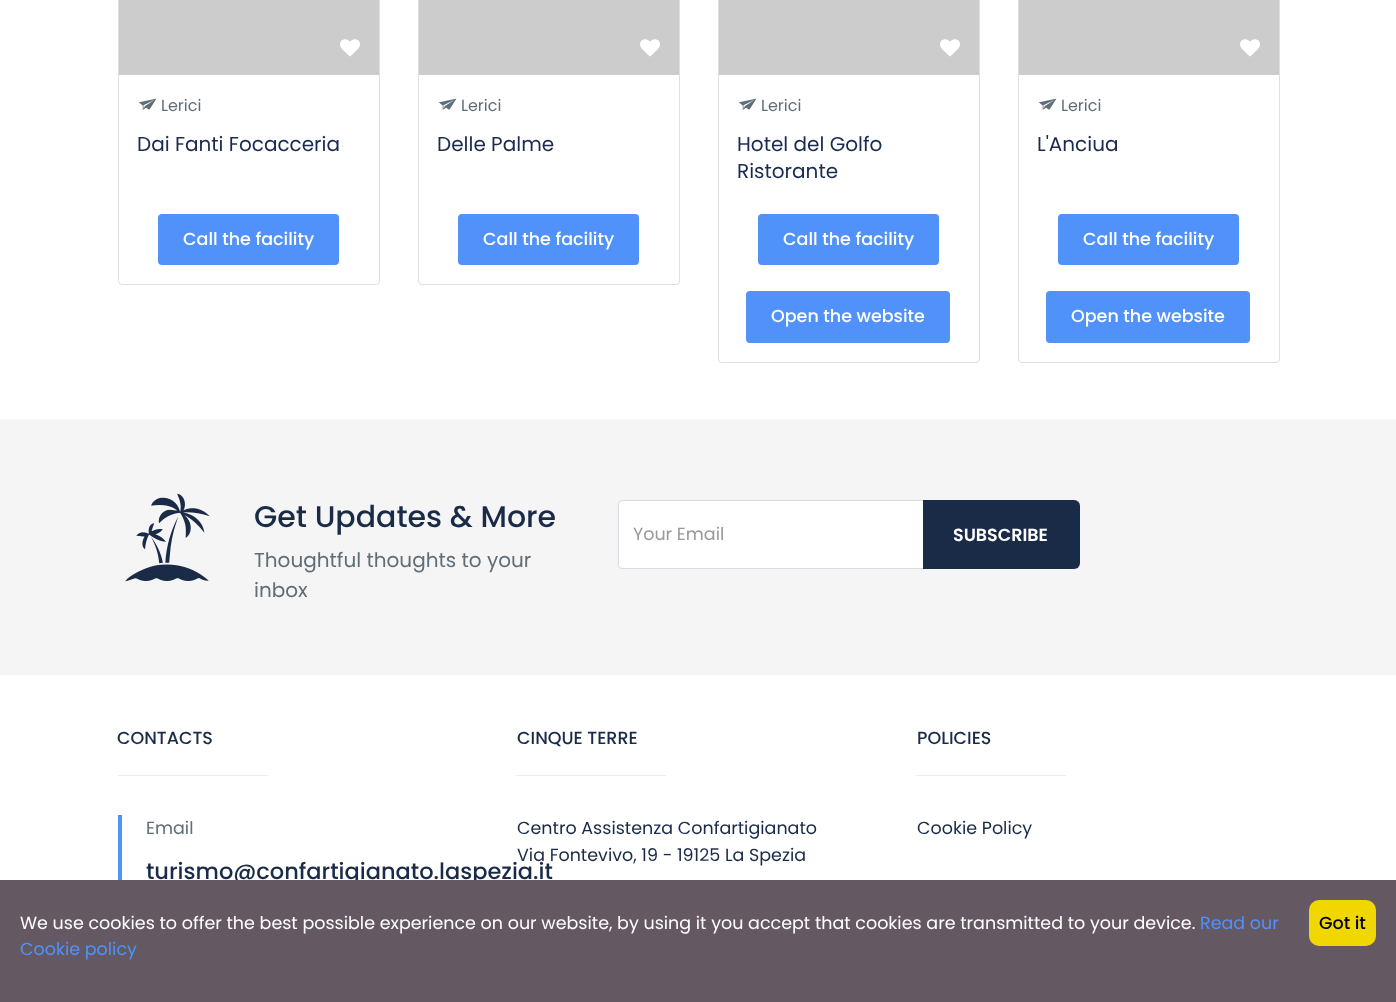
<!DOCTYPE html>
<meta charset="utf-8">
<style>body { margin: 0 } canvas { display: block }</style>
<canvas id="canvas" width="1396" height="1002"></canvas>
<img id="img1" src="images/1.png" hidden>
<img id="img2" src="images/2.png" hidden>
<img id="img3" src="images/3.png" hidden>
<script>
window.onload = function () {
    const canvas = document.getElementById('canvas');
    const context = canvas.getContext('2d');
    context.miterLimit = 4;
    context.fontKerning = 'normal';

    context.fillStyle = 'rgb(255, 255, 255)';
    context.fillRect(0, 0, 1396, 1002);
    context.beginPath();
    context.roundRect(118.5, -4.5, 261, 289, 3.5);
    context.strokeStyle = 'rgb(223, 223, 223)';
    context.stroke();
    context.fillStyle = 'rgb(204, 204, 204)';
    context.fillRect(119, 0, 260, 75);
    context.drawImage(document.getElementById('img1'), 340, 39, 20, 18);
    context.drawImage(document.getElementById('img2'), 138, 98, 19, 12);
    context.fillStyle = 'rgb(81, 145, 250)';
    context.beginPath();
    context.roundRect(158, 214, 181, 51, 4);
    context.fill();
    context.beginPath();
    context.roundRect(418.5, -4.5, 261, 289, 3.5);
    context.stroke();
    context.fillStyle = 'rgb(204, 204, 204)';
    context.fillRect(419, 0, 260, 75);
    context.drawImage(document.getElementById('img1'), 640, 39, 20, 18);
    context.drawImage(document.getElementById('img2'), 438, 98, 19, 12);
    context.fillStyle = 'rgb(81, 145, 250)';
    context.beginPath();
    context.roundRect(458, 214, 181, 51, 4);
    context.fill();
    context.beginPath();
    context.roundRect(718.5, -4.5, 261, 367, 3.5);
    context.stroke();
    context.fillStyle = 'rgb(204, 204, 204)';
    context.fillRect(719, 0, 260, 75);
    context.drawImage(document.getElementById('img1'), 940, 39, 20, 18);
    context.drawImage(document.getElementById('img2'), 738, 98, 19, 12);
    context.fillStyle = 'rgb(81, 145, 250)';
    context.beginPath();
    context.roundRect(758, 214, 181, 51, 4);
    context.fill();
    context.beginPath();
    context.roundRect(746, 291, 204, 52, 4);
    context.fill();
    context.beginPath();
    context.roundRect(1018.5, -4.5, 261, 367, 3.5);
    context.stroke();
    context.fillStyle = 'rgb(204, 204, 204)';
    context.fillRect(1019, 0, 260, 75);
    context.drawImage(document.getElementById('img1'), 1240, 39, 20, 18);
    context.drawImage(document.getElementById('img2'), 1038, 98, 19, 12);
    context.fillStyle = 'rgb(81, 145, 250)';
    context.beginPath();
    context.roundRect(1058, 214, 181, 51, 4);
    context.fill();
    context.beginPath();
    context.roundRect(1046, 291, 204, 52, 4);
    context.fill();
    context.fillStyle = 'rgb(245, 245, 245)';
    context.fillRect(0, 419, 1396, 256);
    context.drawImage(document.getElementById('img3'), 125, 493, 85, 89);
    context.fillStyle = 'rgb(255, 255, 255)';
    context.beginPath();
    context.roundRect(619, 501, 460, 67, 2.5);
    context.fill();
    context.beginPath();
    context.roundRect(618.5, 500.5, 461, 68, 3.5);
    context.strokeStyle = 'rgb(215, 220, 227)';
    context.stroke();
    context.fillStyle = 'rgb(26, 43, 72)';
    context.beginPath();
    context.roundRect(923, 500, 157, 69, [0, 6, 6, 0]);
    context.fill();
    context.fillStyle = 'rgb(235, 235, 235)';
    context.fillRect(118, 775, 150, 1);
    context.fillStyle = 'rgb(81, 145, 250)';
    context.fillRect(118, 815, 4, 73);
    context.fillStyle = 'rgb(235, 235, 235)';
    context.fillRect(516, 775, 150, 1);
    context.fillRect(916, 775, 150, 1);
    context.font = '16px Poppins';
    context.fillStyle = 'rgb(94, 109, 119)';
    context.fillText('Lerici', 161, 111);
    context.font = '20px Poppins';
    context.fillStyle = 'rgb(26, 43, 80)';
    context.fillText('Dai Fanti Focacceria', 137, 151);
    context.font = '500 17.5px Poppins';
    context.fillStyle = 'rgb(255, 255, 255)';
    context.fillText('Call the facility', 183, 245);
    context.font = '16px Poppins';
    context.fillStyle = 'rgb(94, 109, 119)';
    context.fillText('Lerici', 461, 111);
    context.font = '20px Poppins';
    context.fillStyle = 'rgb(26, 43, 80)';
    context.fillText('Delle Palme', 437, 151);
    context.font = '500 17.5px Poppins';
    context.fillStyle = 'rgb(255, 255, 255)';
    context.fillText('Call the facility', 483, 245);
    context.font = '16px Poppins';
    context.fillStyle = 'rgb(94, 109, 119)';
    context.fillText('Lerici', 761, 111);
    context.font = '20px Poppins';
    context.fillStyle = 'rgb(26, 43, 80)';
    context.fillText('Hotel del Golfo', 737, 151);
    context.fillText('Ristorante', 737, 178);
    context.font = '500 17.5px Poppins';
    context.fillStyle = 'rgb(255, 255, 255)';
    context.fillText('Call the facility', 783, 245);
    context.fillText('Open the website', 771, 322);
    context.font = '16px Poppins';
    context.fillStyle = 'rgb(94, 109, 119)';
    context.fillText('Lerici', 1061, 111);
    context.font = '20px Poppins';
    context.fillStyle = 'rgb(26, 43, 80)';
    context.fillText('L\'Anciua', 1037, 151);
    context.font = '500 17.5px Poppins';
    context.fillStyle = 'rgb(255, 255, 255)';
    context.fillText('Call the facility', 1083, 245);
    context.fillText('Open the website', 1071, 322);
    context.font = '500 30px Poppins';
    context.fillStyle = 'rgb(26, 43, 72)';
    context.fillText('Get Updates & More', 254, 527);
    context.font = '20px Poppins';
    context.fillStyle = 'rgb(94, 109, 119)';
    context.fillText('Thoughtful thoughts to your', 254, 567);
    context.fillText('inbox', 254, 597);
    context.font = '17.5px Poppins';
    context.fillStyle = 'rgb(153, 153, 153)';
    context.fillText('Your Email', 633, 540);
    context.font = '600 17.5px Poppins';
    context.fillStyle = 'rgb(255, 255, 255)';
    context.fillText('SUBSCRIBE', 953, 541);
    context.font = '500 17.5px Poppins';
    context.fillStyle = 'rgb(26, 43, 72)';
    context.fillText('CONTACTS', 117, 744);
    context.font = '17.5px Poppins';
    context.fillStyle = 'rgb(94, 109, 119)';
    context.fillText('Email', 146, 834);
    context.font = '500 22.5px Poppins';
    context.fillStyle = 'rgb(26, 43, 72)';
    context.fillText('turismo@confartigianato.laspezia.it', 146, 879);
    context.font = '500 17.5px Poppins';
    context.fillText('CINQUE TERRE', 517, 744);
    context.font = '17.5px Poppins';
    context.fillText('Centro Assistenza Confartigianato', 517, 834);
    context.fillText('Via Fontevivo, 19 - 19125 La Spezia', 517, 861);
    context.font = '500 17.5px Poppins';
    context.fillText('POLICIES', 917, 744);
    context.font = '17.5px Poppins';
    context.fillText('Cookie Policy', 917, 834);
    context.fillStyle = 'rgb(100, 88, 98)';
    context.fillRect(0, 880, 1396, 122);
    context.fillStyle = 'rgb(255, 255, 255)';
    context.fillText('We use cookies to offer the best possible experience on our website, by using it you accept that cookies are transmitted to your device.', 20, 929);
    context.fillStyle = 'rgb(81, 145, 250)';
    context.fillText('Read our', 1200, 929);
    context.fillText('Cookie policy', 20, 955);
    context.fillStyle = 'rgb(241, 215, 0)';
    context.beginPath();
    context.roundRect(1309, 900, 67, 46, 10);
    context.fill();
    context.font = '500 17.5px Poppins';
    context.fillStyle = 'rgb(0, 0, 0)';
    context.fillText('Got it', 1319, 929);
};
</script>
